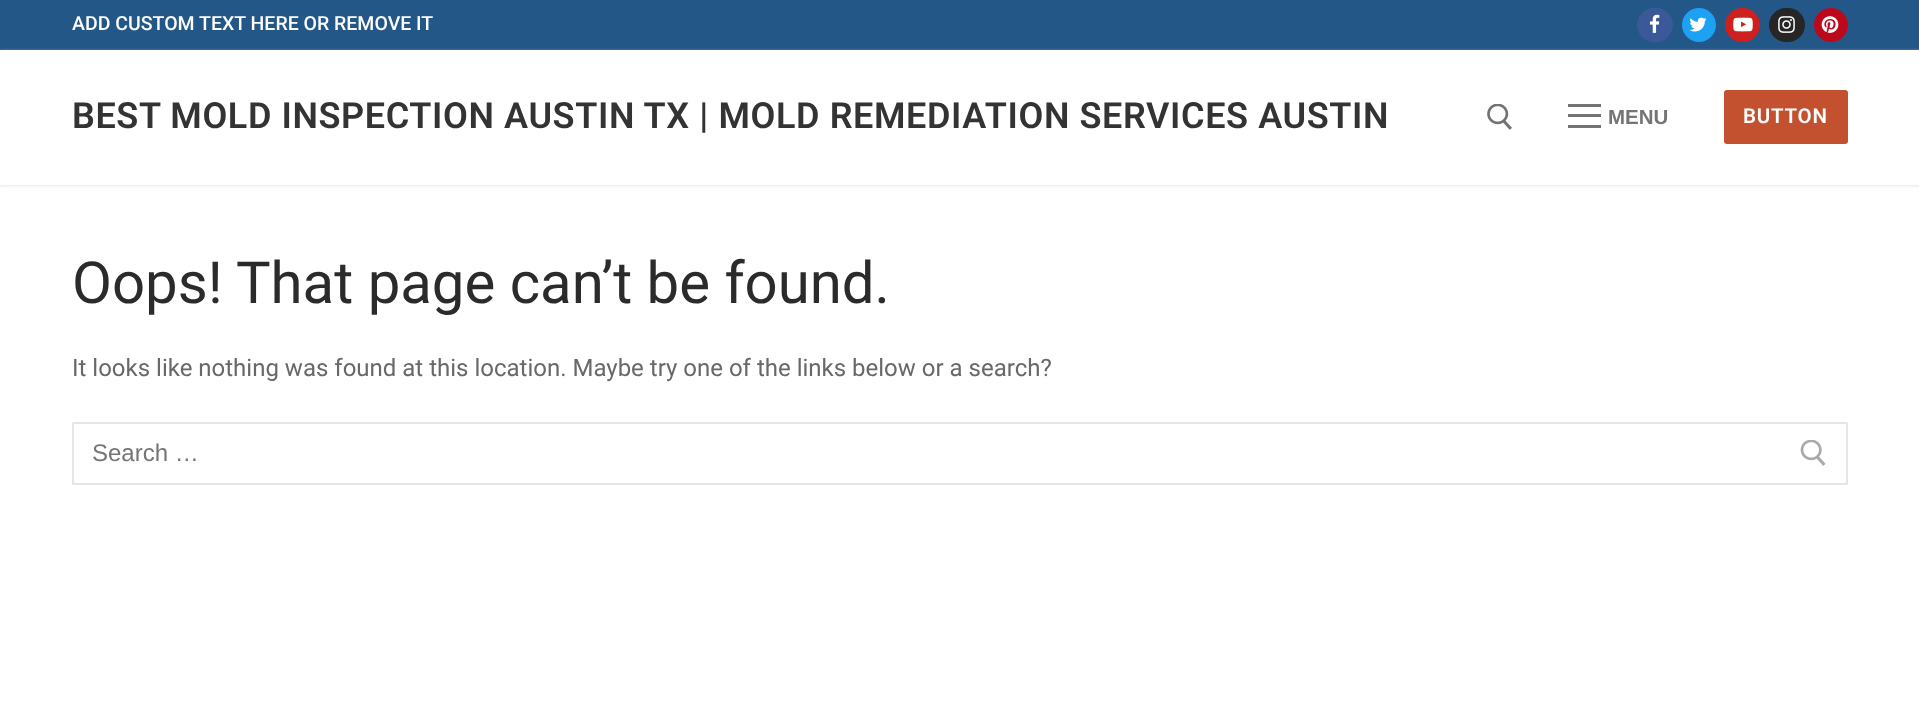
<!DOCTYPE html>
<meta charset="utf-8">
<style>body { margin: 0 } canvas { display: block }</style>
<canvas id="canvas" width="1919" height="727"></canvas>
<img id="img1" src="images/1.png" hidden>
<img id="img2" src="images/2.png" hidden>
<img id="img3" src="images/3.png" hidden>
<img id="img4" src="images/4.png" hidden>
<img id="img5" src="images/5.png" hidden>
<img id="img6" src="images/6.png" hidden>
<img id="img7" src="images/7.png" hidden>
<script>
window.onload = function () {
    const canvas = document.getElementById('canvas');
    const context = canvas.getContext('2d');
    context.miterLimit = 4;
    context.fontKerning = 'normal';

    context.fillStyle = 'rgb(255, 255, 255)';
    context.fillRect(0, 0, 1919, 727);
    context.fillStyle = 'rgb(35, 87, 135)';
    context.fillRect(0, 0, 1919, 50);
    context.fillStyle = 'rgb(59, 89, 152)';
    context.beginPath();
    context.roundRect(1637, 8, 36, 34, 17);
    context.fill();
    context.drawImage(document.getElementById('img1'), 1649, 14, 11, 19);
    context.fillStyle = 'rgb(29, 161, 242)';
    context.beginPath();
    context.arc(1699, 25, 17, 0, 2 * Math.PI);
    context.fill();
    context.drawImage(document.getElementById('img2'), 1689, 17, 18, 15);
    context.fillStyle = 'rgb(205, 32, 31)';
    context.beginPath();
    context.roundRect(1725, 8, 35, 34, 17);
    context.fill();
    context.drawImage(document.getElementById('img3'), 1733, 17, 20, 15);
    context.fillStyle = 'rgb(38, 38, 38)';
    context.beginPath();
    context.roundRect(1769, 8, 36, 34, 17);
    context.fill();
    context.drawImage(document.getElementById('img4'), 1778, 16, 17, 17);
    context.fillStyle = 'rgb(189, 8, 28)';
    context.beginPath();
    context.arc(1831, 25, 17, 0, 2 * Math.PI);
    context.fill();
    context.drawImage(document.getElementById('img5'), 1821, 16, 18, 17);
    context.fillStyle = 'rgb(225, 229, 234)';
    context.filter = 'blur(1.5px)';
    context.beginPath();
    context.rect(0, 51, 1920, 135);
    context.fill();
    context.filter = 'none';
    context.fillStyle = 'rgb(255, 255, 255)';
    context.fillRect(0, 50, 1919, 135);
    context.drawImage(document.getElementById('img6'), 1487, 104, 25, 26);
    context.fillStyle = 'rgb(115, 115, 115)';
    context.fillRect(1568, 114, 33, 3);
    context.fillRect(1568, 104, 33, 3);
    context.fillRect(1568, 125, 33, 3);
    context.fillStyle = 'rgb(195, 81, 47)';
    context.beginPath();
    context.roundRect(1724, 90, 124, 54, 3);
    context.fill();
    context.beginPath();
    context.roundRect(73, 423, 1774, 61, 0.5);
    context.strokeStyle = 'rgb(229, 229, 229)';
    context.lineWidth = 2;
    context.stroke();
    context.drawImage(document.getElementById('img7'), 1800, 440, 26, 26);
    context.font = '500 19.5px Roboto';
    context.fillStyle = 'rgb(253, 253, 254)';
    context.fillText('ADD CUSTOM TEXT HERE OR REMOVE IT', 72, 30);
    context.letterSpacing = '0.6px';
    context.font = '600 36px Roboto';
    context.fillStyle = 'rgb(51, 51, 51)';
    context.fillText('BEST MOLD INSPECTION AUSTIN TX | MOLD REMEDIATION SERVICES AUSTIN', 72, 128);
    context.letterSpacing = '0px';
    context.font = 'bold 20.5px Liberation Sans';
    context.fillStyle = 'rgb(117, 117, 117)';
    context.fillText('MENU', 1608, 124);
    context.letterSpacing = '0.75px';
    context.font = '600 20.5px Roboto';
    context.fillStyle = 'rgb(253, 253, 254)';
    context.fillText('BUTTON', 1743, 123);
    context.letterSpacing = '0px';
    context.font = '58.1px Roboto';
    context.fillStyle = 'rgb(43, 43, 43)';
    context.fillText('Oops! That page can’t be found.', 72, 303);
    context.font = '24px Roboto';
    context.fillStyle = 'rgb(104, 104, 104)';
    context.fillText('It looks like nothing was found at this location. Maybe try one of the links below or a search?', 72, 376);
    context.font = '24px Liberation Sans';
    context.fillStyle = 'rgb(117, 117, 117)';
    context.fillText('Search …', 92, 461);
};
</script>
